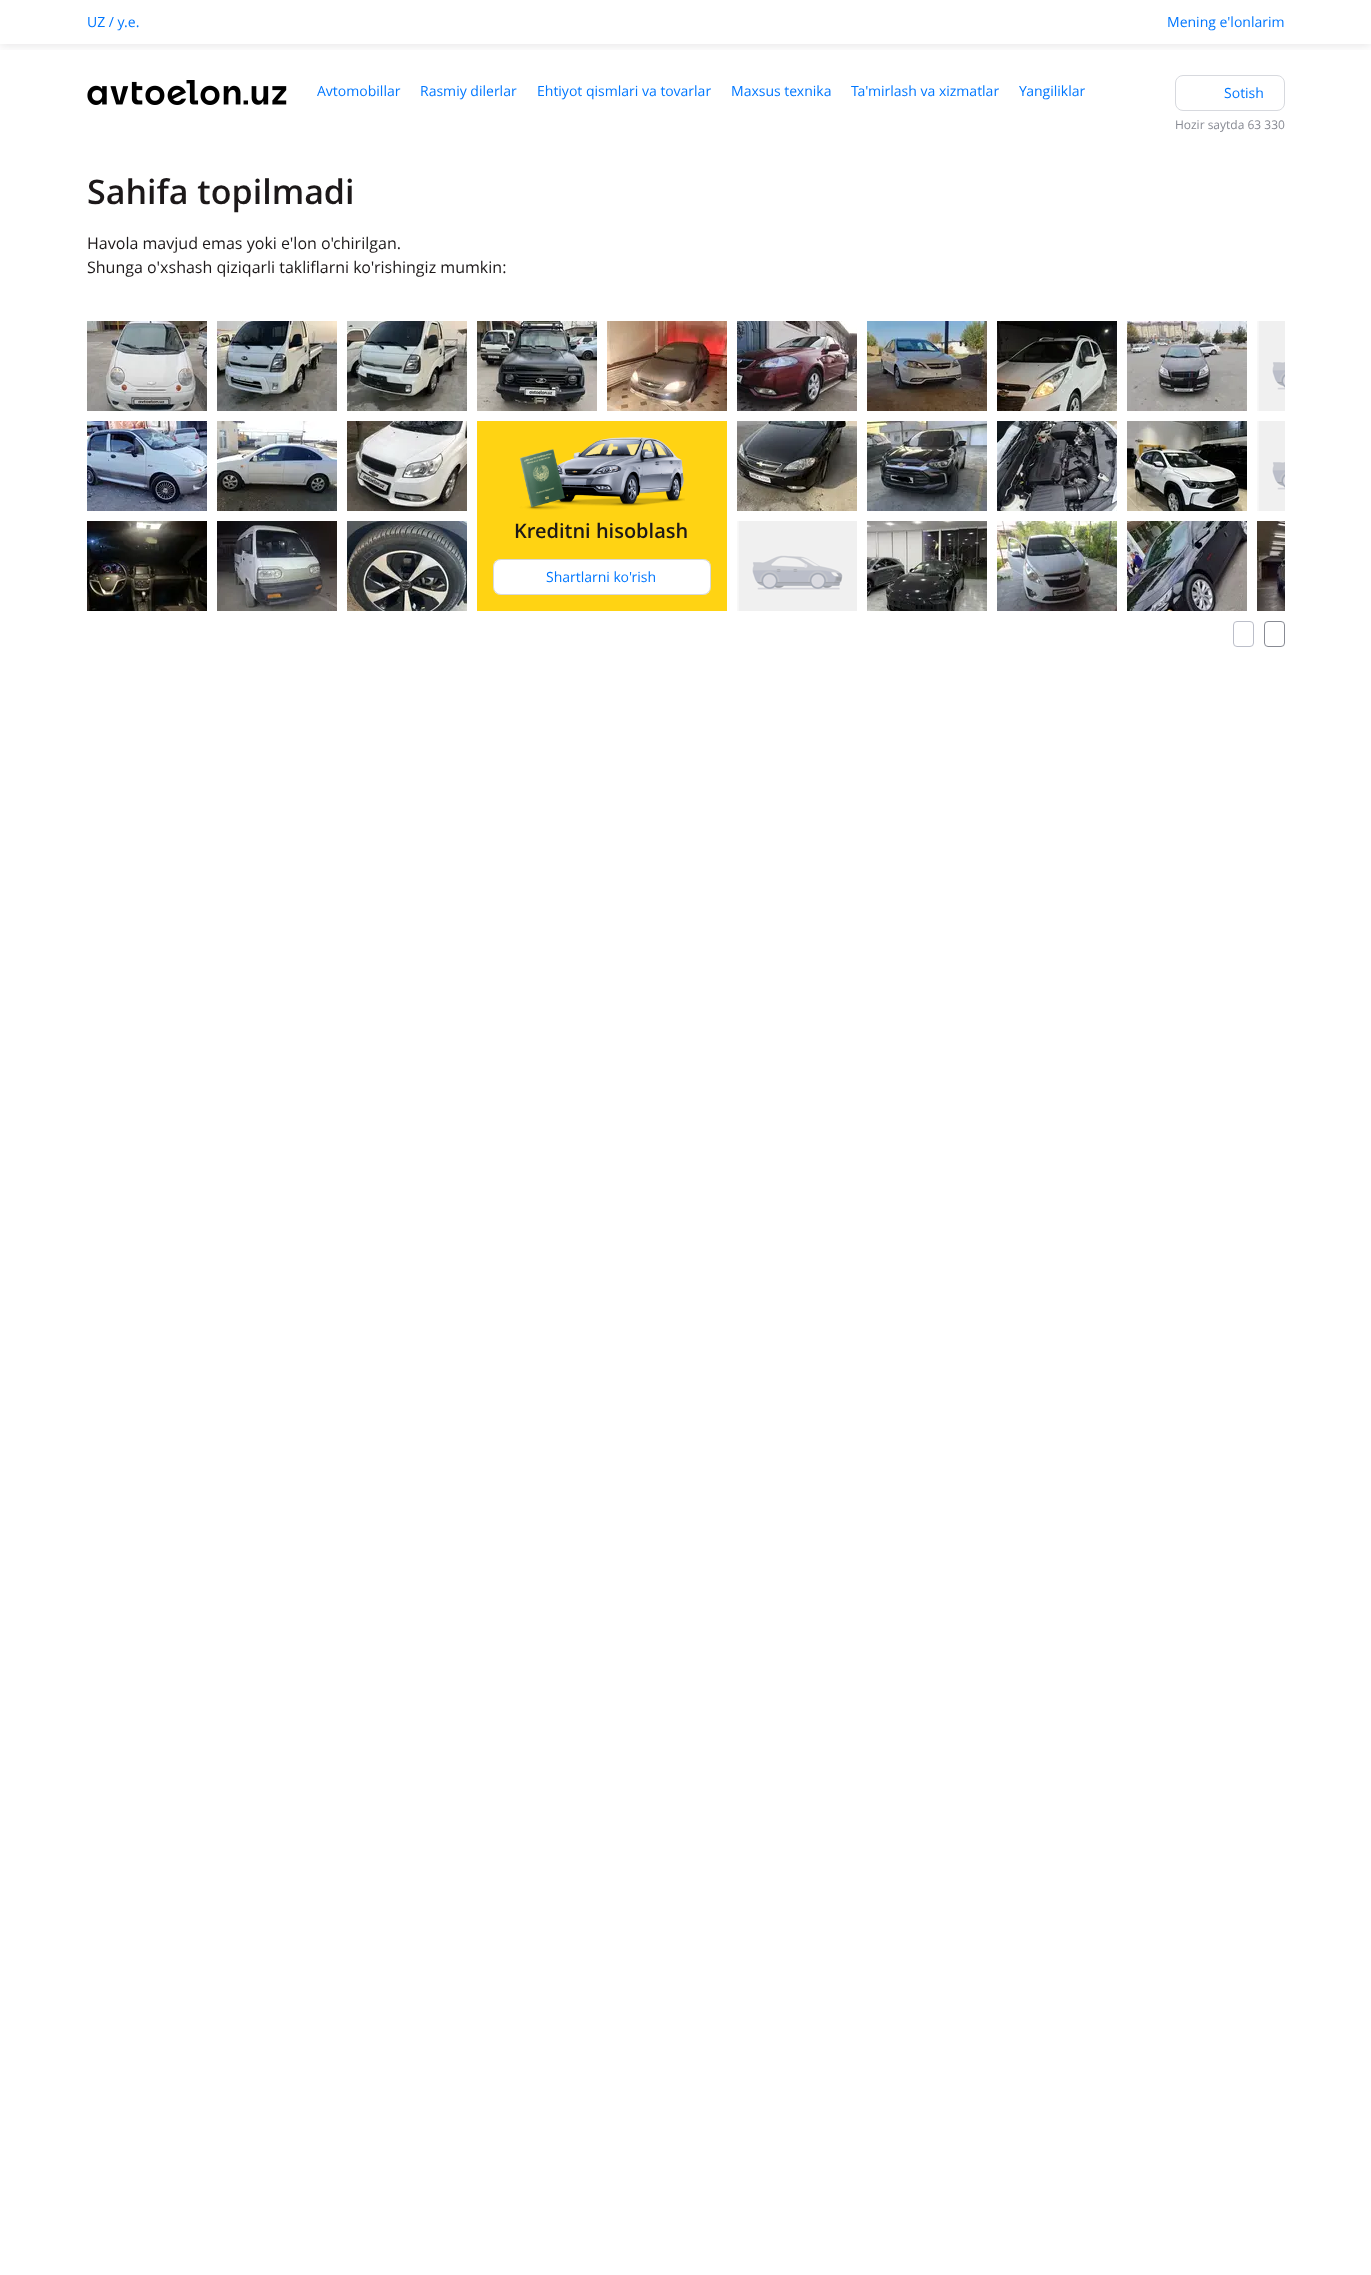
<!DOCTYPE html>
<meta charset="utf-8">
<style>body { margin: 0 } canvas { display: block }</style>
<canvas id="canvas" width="1371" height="2275"></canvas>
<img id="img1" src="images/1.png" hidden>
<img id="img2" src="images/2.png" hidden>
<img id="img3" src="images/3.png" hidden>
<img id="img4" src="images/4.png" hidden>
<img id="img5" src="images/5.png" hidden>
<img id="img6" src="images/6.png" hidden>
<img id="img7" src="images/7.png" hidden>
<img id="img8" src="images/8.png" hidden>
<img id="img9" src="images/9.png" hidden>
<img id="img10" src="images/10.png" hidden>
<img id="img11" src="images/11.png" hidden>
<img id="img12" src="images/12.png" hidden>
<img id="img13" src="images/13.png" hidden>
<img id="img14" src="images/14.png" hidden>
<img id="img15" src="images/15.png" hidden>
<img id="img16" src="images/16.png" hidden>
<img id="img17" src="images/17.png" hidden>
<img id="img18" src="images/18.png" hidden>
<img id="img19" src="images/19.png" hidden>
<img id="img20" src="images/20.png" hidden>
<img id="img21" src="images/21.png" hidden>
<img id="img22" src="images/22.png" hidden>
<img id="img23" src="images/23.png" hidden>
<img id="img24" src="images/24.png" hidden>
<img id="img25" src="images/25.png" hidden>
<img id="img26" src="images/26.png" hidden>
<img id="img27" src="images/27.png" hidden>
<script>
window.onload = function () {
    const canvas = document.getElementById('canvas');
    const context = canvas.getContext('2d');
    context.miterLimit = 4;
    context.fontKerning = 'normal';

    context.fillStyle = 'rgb(255, 255, 255)';
    context.fillRect(0, 0, 1371, 2275);
    context.save();
    context.beginPath();
    context.rect(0, 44, 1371, 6);
    context.clip();
    context.fillStyle = 'rgba(28, 24, 25, 0.1)';
    context.filter = 'blur(5px)';
    context.beginPath();
    context.rect(0, 2, 1371, 44);
    context.fill();
    context.filter = 'none';
    context.restore();
    context.drawImage(document.getElementById('img1'), 87, 80, 200, 25);
    context.beginPath();
    context.roundRect(1175.5, 75.5, 109, 35, 7.5);
    context.strokeStyle = 'rgb(215, 217, 222)';
    context.stroke();
    context.drawImage(document.getElementById('img2'), 87, 321, 120, 90);
    context.drawImage(document.getElementById('img3'), 217, 321, 120, 90);
    context.drawImage(document.getElementById('img4'), 347, 321, 120, 90);
    context.drawImage(document.getElementById('img5'), 477, 321, 120, 90);
    context.drawImage(document.getElementById('img6'), 607, 321, 120, 90);
    context.drawImage(document.getElementById('img7'), 737, 321, 120, 90);
    context.drawImage(document.getElementById('img8'), 867, 321, 120, 90);
    context.drawImage(document.getElementById('img9'), 997, 321, 120, 90);
    context.drawImage(document.getElementById('img10'), 1127, 321, 120, 90);
    context.drawImage(document.getElementById('img11'), 1257, 321, 28, 90);
    context.drawImage(document.getElementById('img12'), 87, 421, 120, 90);
    context.drawImage(document.getElementById('img13'), 217, 421, 120, 90);
    context.drawImage(document.getElementById('img14'), 347, 421, 120, 90);
    context.drawImage(document.getElementById('img15'), 737, 421, 120, 90);
    context.drawImage(document.getElementById('img16'), 867, 421, 120, 90);
    context.drawImage(document.getElementById('img17'), 997, 421, 120, 90);
    context.drawImage(document.getElementById('img18'), 1127, 421, 120, 90);
    context.drawImage(document.getElementById('img11'), 1257, 421, 28, 90);
    context.drawImage(document.getElementById('img19'), 87, 521, 120, 90);
    context.drawImage(document.getElementById('img20'), 217, 521, 120, 90);
    context.drawImage(document.getElementById('img21'), 347, 521, 120, 90);
    context.fillStyle = 'rgb(255, 211, 19)';
    context.fillRect(477, 421, 250, 190);
    context.drawImage(document.getElementById('img22'), 519, 437, 166, 73);
    context.fillStyle = 'rgb(255, 255, 255)';
    context.beginPath();
    context.roundRect(493, 559, 218, 36, 8);
    context.fill();
    context.beginPath();
    context.roundRect(493.5, 559.5, 217, 35, 7.5);
    context.strokeStyle = 'rgba(80, 91, 113, 0.23)';
    context.stroke();
    context.drawImage(document.getElementById('img23'), 737, 521, 120, 90);
    context.drawImage(document.getElementById('img24'), 867, 521, 120, 90);
    context.drawImage(document.getElementById('img25'), 997, 521, 120, 90);
    context.drawImage(document.getElementById('img26'), 1127, 521, 120, 90);
    context.drawImage(document.getElementById('img27'), 1257, 521, 28, 90);
    context.beginPath();
    context.roundRect(1233.5, 621.5, 20, 25, 3.5);
    context.strokeStyle = 'rgb(187, 190, 201)';
    context.stroke();
    context.beginPath();
    context.roundRect(1264.5, 621.5, 20, 25, 3.5);
    context.strokeStyle = 'rgb(136, 139, 148)';
    context.stroke();
    context.font = '14px Open Sans';
    context.fillStyle = 'rgb(0, 119, 255)';
    context.fillText('UZ / у.е.', 87, 27);
    context.fillText('Mening e\'lonlarim', 1167, 27);
    context.fillText('Avtomobillar', 317, 96);
    context.fillText('Rasmiy dilerlar', 420, 96);
    context.fillText('Ehtiyot qismlari va tovarlar', 537, 96);
    context.fillText('Maxsus texnika', 731, 96);
    context.fillText('Ta\'mirlash va xizmatlar', 851, 96);
    context.fillText('Yangiliklar', 1019, 96);
    context.fillText('Sotish', 1224, 98);
    context.font = '12px Open Sans';
    context.fillStyle = 'rgb(136, 139, 148)';
    context.fillText('Hozir saytda 63 330', 1175, 129);
    context.font = '600 34px Open Sans';
    context.fillStyle = 'rgb(28, 24, 25)';
    context.fillText('Sahifa topilmadi', 87, 204);
    context.font = '16px Open Sans';
    context.fillText('Havola mavjud emas yoki e\'lon o\'chirilgan.', 87, 249);
    context.fillText('Shunga o\'xshash qiziqarli takliflarni ko\'rishingiz mumkin:', 87, 273);
    context.font = '600 20px Open Sans';
    context.fillText('Kreditni hisoblash', 514, 538);
    context.font = '14px Open Sans';
    context.fillStyle = 'rgb(0, 119, 255)';
    context.fillText('Shartlarni ko\'rish', 546, 582);
};
</script>
